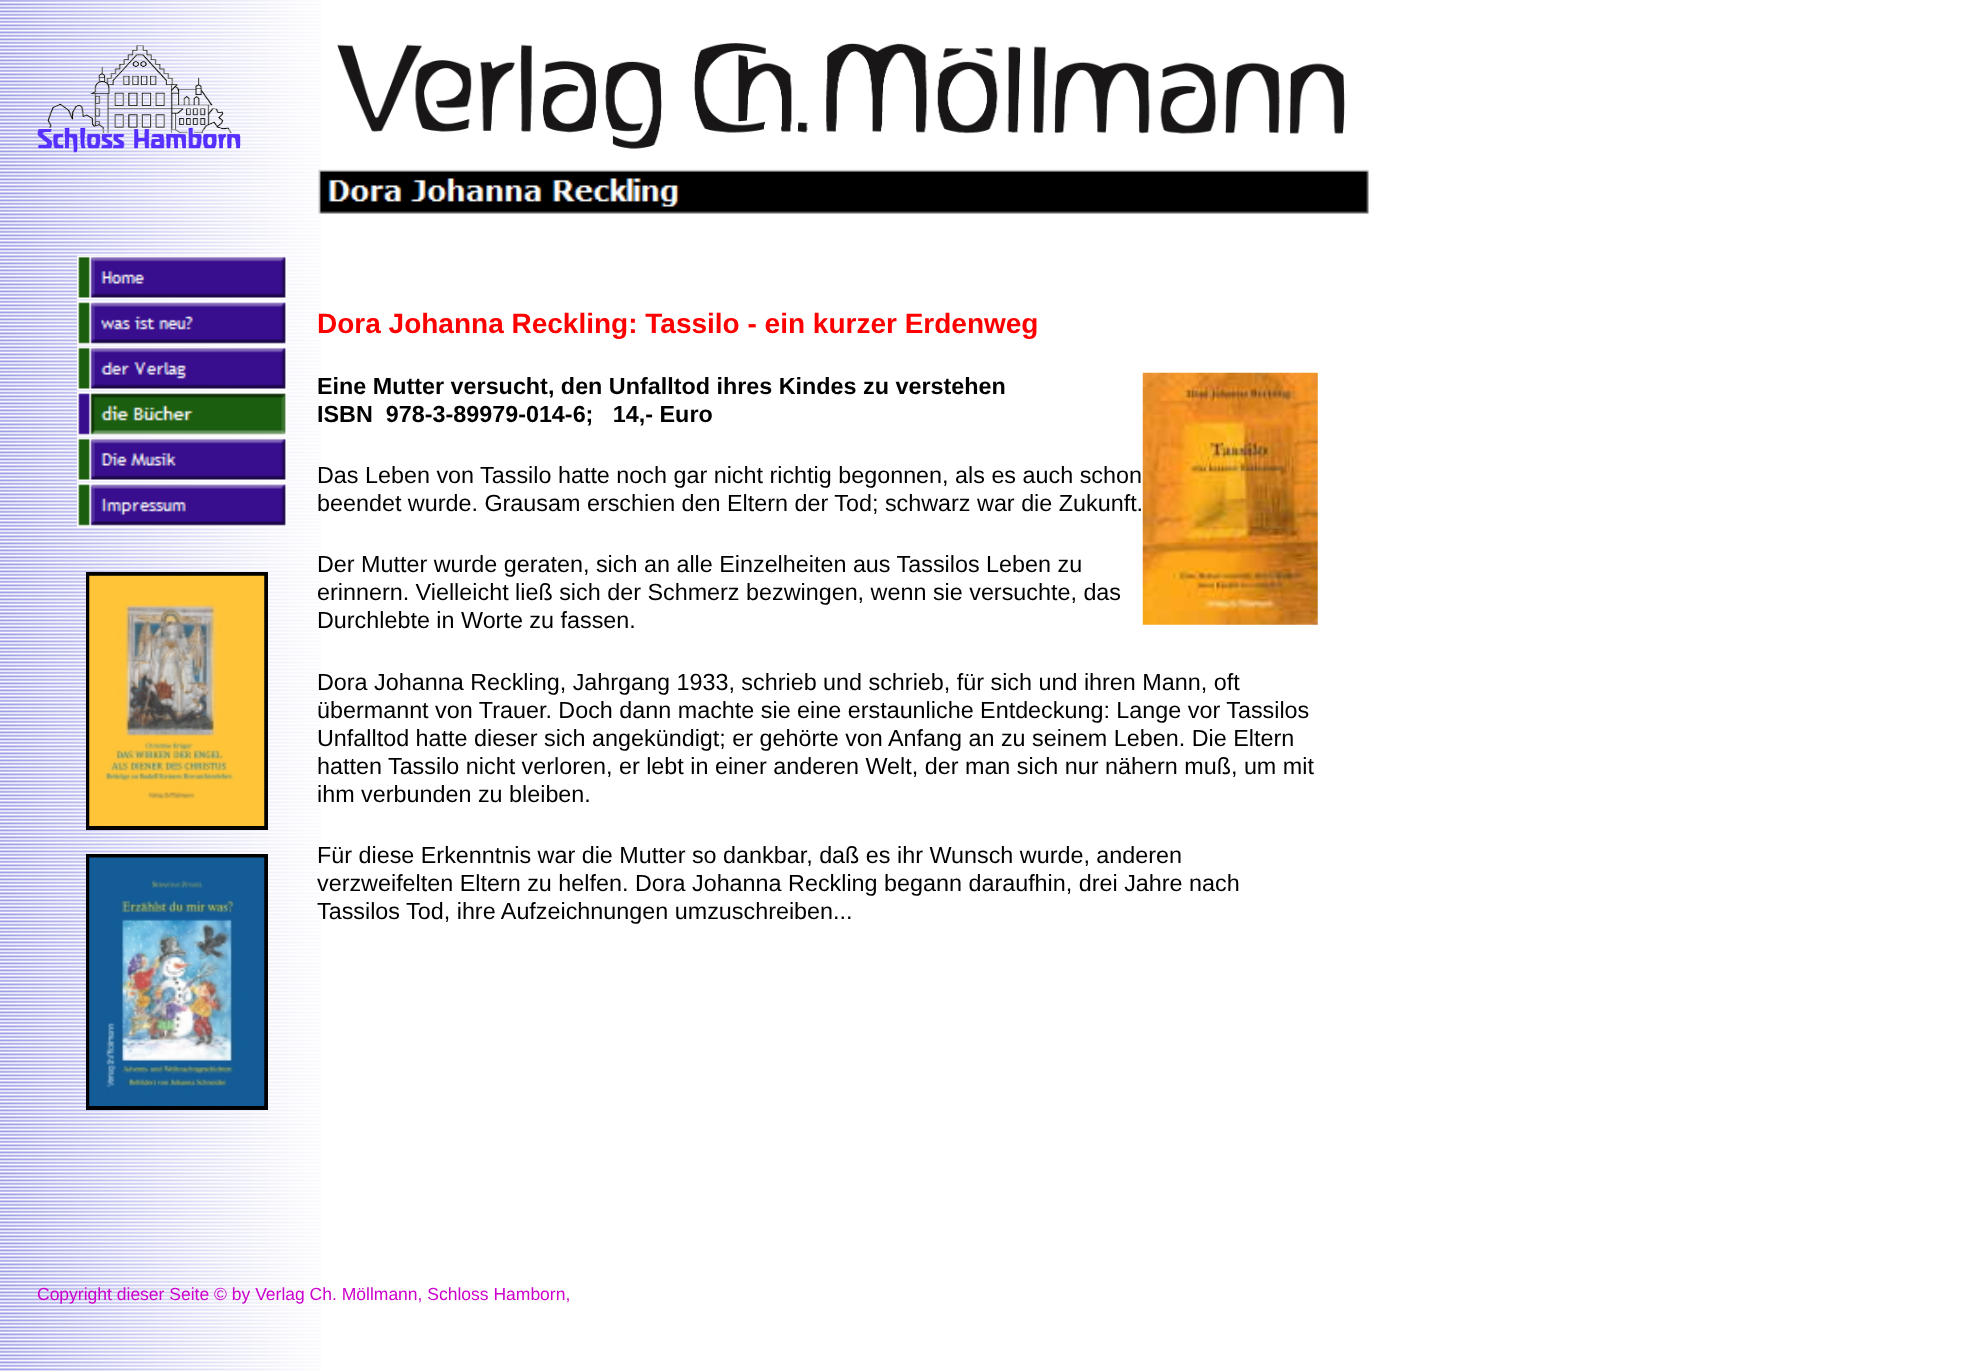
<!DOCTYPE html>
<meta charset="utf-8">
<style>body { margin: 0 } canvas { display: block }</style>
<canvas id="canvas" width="1962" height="1371"></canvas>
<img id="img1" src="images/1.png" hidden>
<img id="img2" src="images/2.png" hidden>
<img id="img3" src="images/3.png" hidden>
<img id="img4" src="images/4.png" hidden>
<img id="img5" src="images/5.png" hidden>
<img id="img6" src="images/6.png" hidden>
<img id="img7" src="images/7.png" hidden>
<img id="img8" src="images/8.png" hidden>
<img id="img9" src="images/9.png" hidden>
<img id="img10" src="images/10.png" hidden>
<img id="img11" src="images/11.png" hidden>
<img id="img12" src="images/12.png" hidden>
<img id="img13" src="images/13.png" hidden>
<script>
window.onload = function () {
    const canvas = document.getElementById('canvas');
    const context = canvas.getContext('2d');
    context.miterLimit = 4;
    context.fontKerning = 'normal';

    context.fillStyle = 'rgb(255, 255, 255)';
    context.fillRect(0, 0, 1962, 1371);
    context.drawImage(document.getElementById('img1'), 0, 0, 321, 1371);
    context.drawImage(document.getElementById('img2'), 37, 45, 204, 108);
    context.drawImage(document.getElementById('img3'), 337, 43, 1008, 106);
    context.drawImage(document.getElementById('img4'), 318, 169, 1051, 45);
    context.drawImage(document.getElementById('img5'), 77, 255, 210, 45);
    context.drawImage(document.getElementById('img6'), 77, 301, 210, 44);
    context.drawImage(document.getElementById('img7'), 77, 346, 210, 45);
    context.drawImage(document.getElementById('img8'), 77, 392, 210, 44);
    context.drawImage(document.getElementById('img9'), 77, 437, 210, 45);
    context.drawImage(document.getElementById('img10'), 77, 483, 210, 44);
    context.strokeStyle = 'rgb(0, 0, 0)';
    context.lineWidth = 4;
    context.strokeRect(88, 574, 178, 254);
    context.drawImage(document.getElementById('img11'), 89, 575, 176, 251);
    context.strokeRect(88, 856, 178, 252);
    context.drawImage(document.getElementById('img12'), 89, 857, 176, 249);
    context.drawImage(document.getElementById('img13'), 1142, 372, 176, 253);
    context.font = 'bold 28px Liberation Sans';
    context.fillStyle = 'rgb(255, 0, 0)';
    context.fillText('Dora Johanna Reckling: Tassilo - ein kurzer Erdenweg', 317, 333);
    context.font = 'bold 23.35px Liberation Sans';
    context.fillStyle = 'rgb(0, 0, 0)';
    context.fillText('Eine Mutter versucht, den Unfalltod ihres Kindes zu verstehen', 317, 394);
    context.fillText('ISBN  978-3-89979-014-6;   14,- Euro', 317, 422);
    context.font = '23.35px Liberation Sans';
    context.fillText('Das Leben von Tassilo hatte noch gar nicht richtig begonnen, als es auch schon', 317, 483);
    context.fillText('beendet wurde. Grausam erschien den Eltern der Tod; schwarz war die Zukunft.', 317, 511);
    context.fillText('Der Mutter wurde geraten, sich an alle Einzelheiten aus Tassilos Leben zu', 317, 572);
    context.fillText('erinnern. Vielleicht ließ sich der Schmerz bezwingen, wenn sie versuchte, das', 317, 600);
    context.fillText('Durchlebte in Worte zu fassen.', 317, 628);
    context.fillText('Dora Johanna Reckling, Jahrgang 1933, schrieb und schrieb, für sich und ihren Mann, oft', 317, 690);
    context.fillText('übermannt von Trauer. Doch dann machte sie eine erstaunliche Entdeckung: Lange vor Tassilos', 317, 718);
    context.fillText('Unfalltod hatte dieser sich angekündigt; er gehörte von Anfang an zu seinem Leben. Die Eltern', 317, 746);
    context.fillText('hatten Tassilo nicht verloren, er lebt in einer anderen Welt, der man sich nur nähern muß, um mit', 317, 774);
    context.fillText('ihm verbunden zu bleiben.', 317, 802);
    context.fillText('Für diese Erkenntnis war die Mutter so dankbar, daß es ihr Wunsch wurde, anderen', 317, 863);
    context.fillText('verzweifelten Eltern zu helfen. Dora Johanna Reckling begann daraufhin, drei Jahre nach', 317, 891);
    context.fillText('Tassilos Tod, ihre Aufzeichnungen umzuschreiben...', 317, 919);
    context.font = '17.5px Liberation Sans';
    context.fillStyle = 'rgb(204, 0, 204)';
    context.fillText('Copyright dieser Seite © by Verlag Ch. Möllmann, Schloss Hamborn,', 37, 1300);
};
</script>
